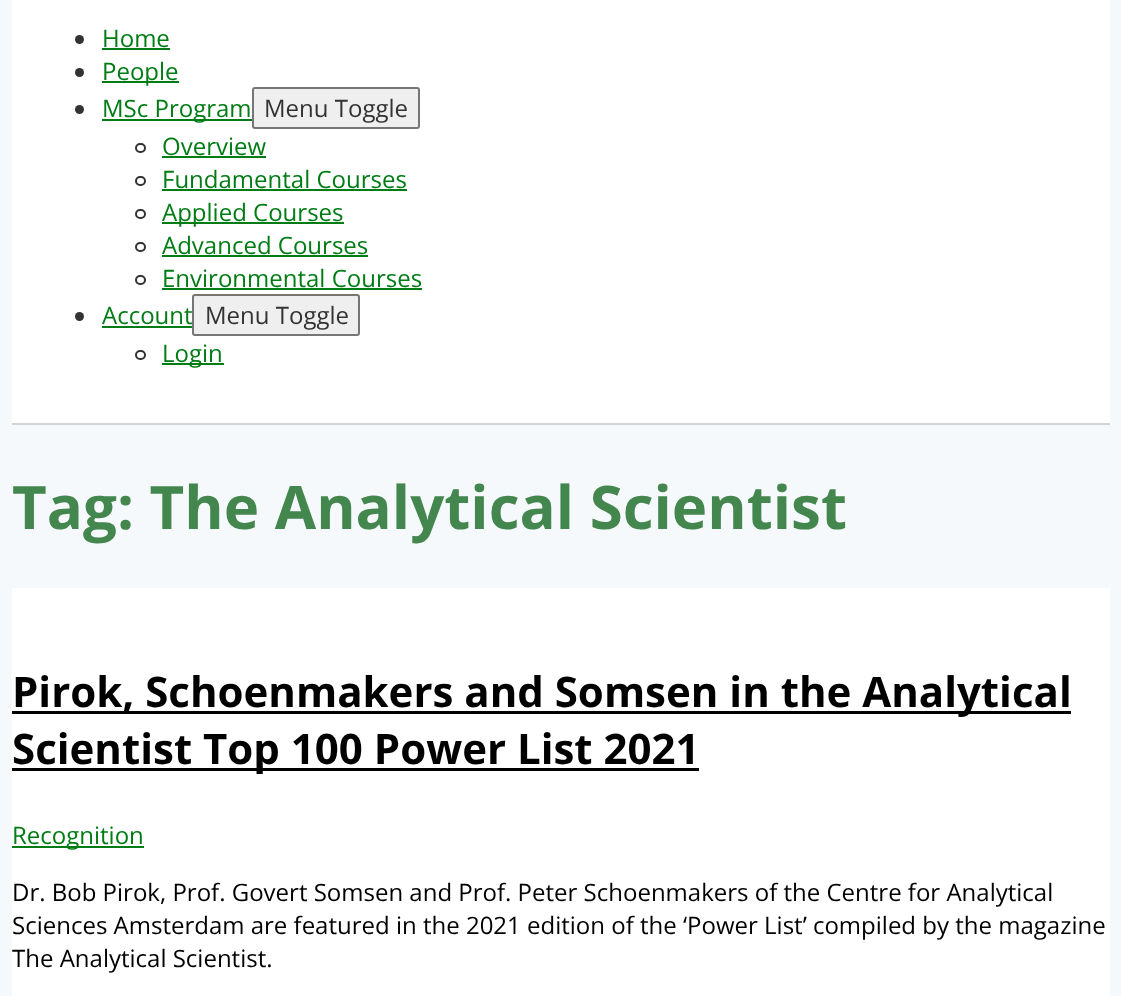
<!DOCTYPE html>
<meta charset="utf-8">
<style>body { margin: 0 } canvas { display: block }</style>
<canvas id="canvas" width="1121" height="996"></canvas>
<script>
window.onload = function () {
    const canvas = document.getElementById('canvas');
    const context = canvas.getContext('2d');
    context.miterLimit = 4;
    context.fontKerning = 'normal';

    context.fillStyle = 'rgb(246, 249, 252)';
    context.fillRect(0, 0, 1121, 996);
    context.fillStyle = 'rgb(255, 255, 255)';
    context.fillRect(12, 0, 1098, 423);
    context.fillStyle = 'rgb(211, 211, 211)';
    context.fillRect(12, 423, 1098, 2);
    context.fillStyle = 'rgb(51, 51, 51)';
    context.beginPath();
    context.arc(79.5, 39.5, 4.5, 0, 2 * Math.PI);
    context.fill();
    context.fillStyle = 'rgb(0, 124, 20)';
    context.fillRect(102, 48, 68, 2);
    context.fillStyle = 'rgb(51, 51, 51)';
    context.beginPath();
    context.arc(79.5, 72.5, 4.5, 0, 2 * Math.PI);
    context.fill();
    context.fillStyle = 'rgb(0, 124, 20)';
    context.fillRect(102, 81, 77, 2);
    context.fillStyle = 'rgb(51, 51, 51)';
    context.beginPath();
    context.arc(79.5, 109.5, 4.5, 0, 2 * Math.PI);
    context.fill();
    context.fillStyle = 'rgb(0, 124, 20)';
    context.fillRect(102, 119, 150, 2);
    context.fillStyle = 'rgb(239, 239, 239)';
    context.beginPath();
    context.roundRect(253, 88, 166, 40, 2);
    context.fill();
    context.strokeStyle = 'rgb(118, 118, 118)';
    context.lineWidth = 2;
    context.stroke();
    context.beginPath();
    context.roundRect(136, 144, 9, 8, 4);
    context.strokeStyle = 'rgb(51, 51, 51)';
    context.stroke();
    context.fillStyle = 'rgb(0, 124, 20)';
    context.fillRect(162, 156, 104, 2);
    context.beginPath();
    context.roundRect(136, 177, 9, 8, 4);
    context.stroke();
    context.fillRect(162, 189, 245, 2);
    context.beginPath();
    context.roundRect(136, 210, 9, 8, 4);
    context.stroke();
    context.fillRect(162, 222, 182, 2);
    context.beginPath();
    context.roundRect(136, 243, 9, 8, 4);
    context.stroke();
    context.fillRect(162, 255, 206, 2);
    context.beginPath();
    context.roundRect(136, 276, 9, 8, 4);
    context.stroke();
    context.fillRect(162, 288, 260, 2);
    context.fillStyle = 'rgb(51, 51, 51)';
    context.beginPath();
    context.arc(79.5, 316.5, 4.5, 0, 2 * Math.PI);
    context.fill();
    context.fillStyle = 'rgb(0, 124, 20)';
    context.fillRect(102, 326, 90, 2);
    context.beginPath();
    context.roundRect(136, 351, 9, 8, 4);
    context.stroke();
    context.fillRect(162, 363, 62, 2);
    context.fillStyle = 'rgb(255, 255, 255)';
    context.fillRect(12, 588, 1098, 408);
    context.fillStyle = 'rgb(0, 0, 0)';
    context.fillRect(12, 711, 1059, 3);
    context.fillRect(12, 768, 687, 3);
    context.fillStyle = 'rgb(0, 124, 20)';
    context.fillRect(12, 846, 132, 2);
    context.font = '24px Open Sans';
    context.fillText('Home', 102, 47);
    context.fillText('People', 102, 80);
    context.fillText('MSc Program', 102, 117);
    context.fillStyle = 'rgb(51, 51, 51)';
    context.fillText('Menu Toggle', 264, 117);
    context.fillStyle = 'rgb(0, 124, 20)';
    context.fillText('Overview', 162, 155);
    context.fillText('Fundamental Courses', 162, 188);
    context.fillText('Applied Courses', 162, 221);
    context.fillText('Advanced Courses', 162, 254);
    context.fillText('Environmental Courses', 162, 287);
    context.fillText('Account', 102, 324);
    context.fillStyle = 'rgb(239, 239, 239)';
    context.beginPath();
    context.roundRect(193, 295, 166, 40, 2);
    context.fill();
    context.strokeStyle = 'rgb(118, 118, 118)';
    context.stroke();
    context.fillStyle = 'rgb(51, 51, 51)';
    context.fillText('Menu Toggle', 205, 324);
    context.fillStyle = 'rgb(0, 124, 20)';
    context.fillText('Login', 162, 362);
    context.font = 'bold 60px Open Sans';
    context.fillStyle = 'rgb(68, 135, 78)';
    context.fillText('Tag: The Analytical Scientist', 12, 529);
    context.font = 'bold 42px Open Sans';
    context.fillStyle = 'rgb(0, 0, 0)';
    context.fillText('Pirok, Schoenmakers and Somsen in the Analytical', 12, 707);
    context.fillText('Scientist Top 100 Power List 2021', 12, 764);
    context.font = '24px Open Sans';
    context.fillStyle = 'rgb(0, 124, 20)';
    context.fillText('Recognition', 12, 844);
    context.fillStyle = 'rgb(0, 0, 0)';
    context.fillText('Dr. Bob Pirok, Prof. Govert Somsen and Prof. Peter Schoenmakers of the Centre for Analytical', 12, 901);
    context.fillText('Sciences Amsterdam are featured in the 2021 edition of the ‘Power List’ compiled by the magazine', 12, 934);
    context.fillText('The Analytical Scientist.', 12, 967);
};
</script>
